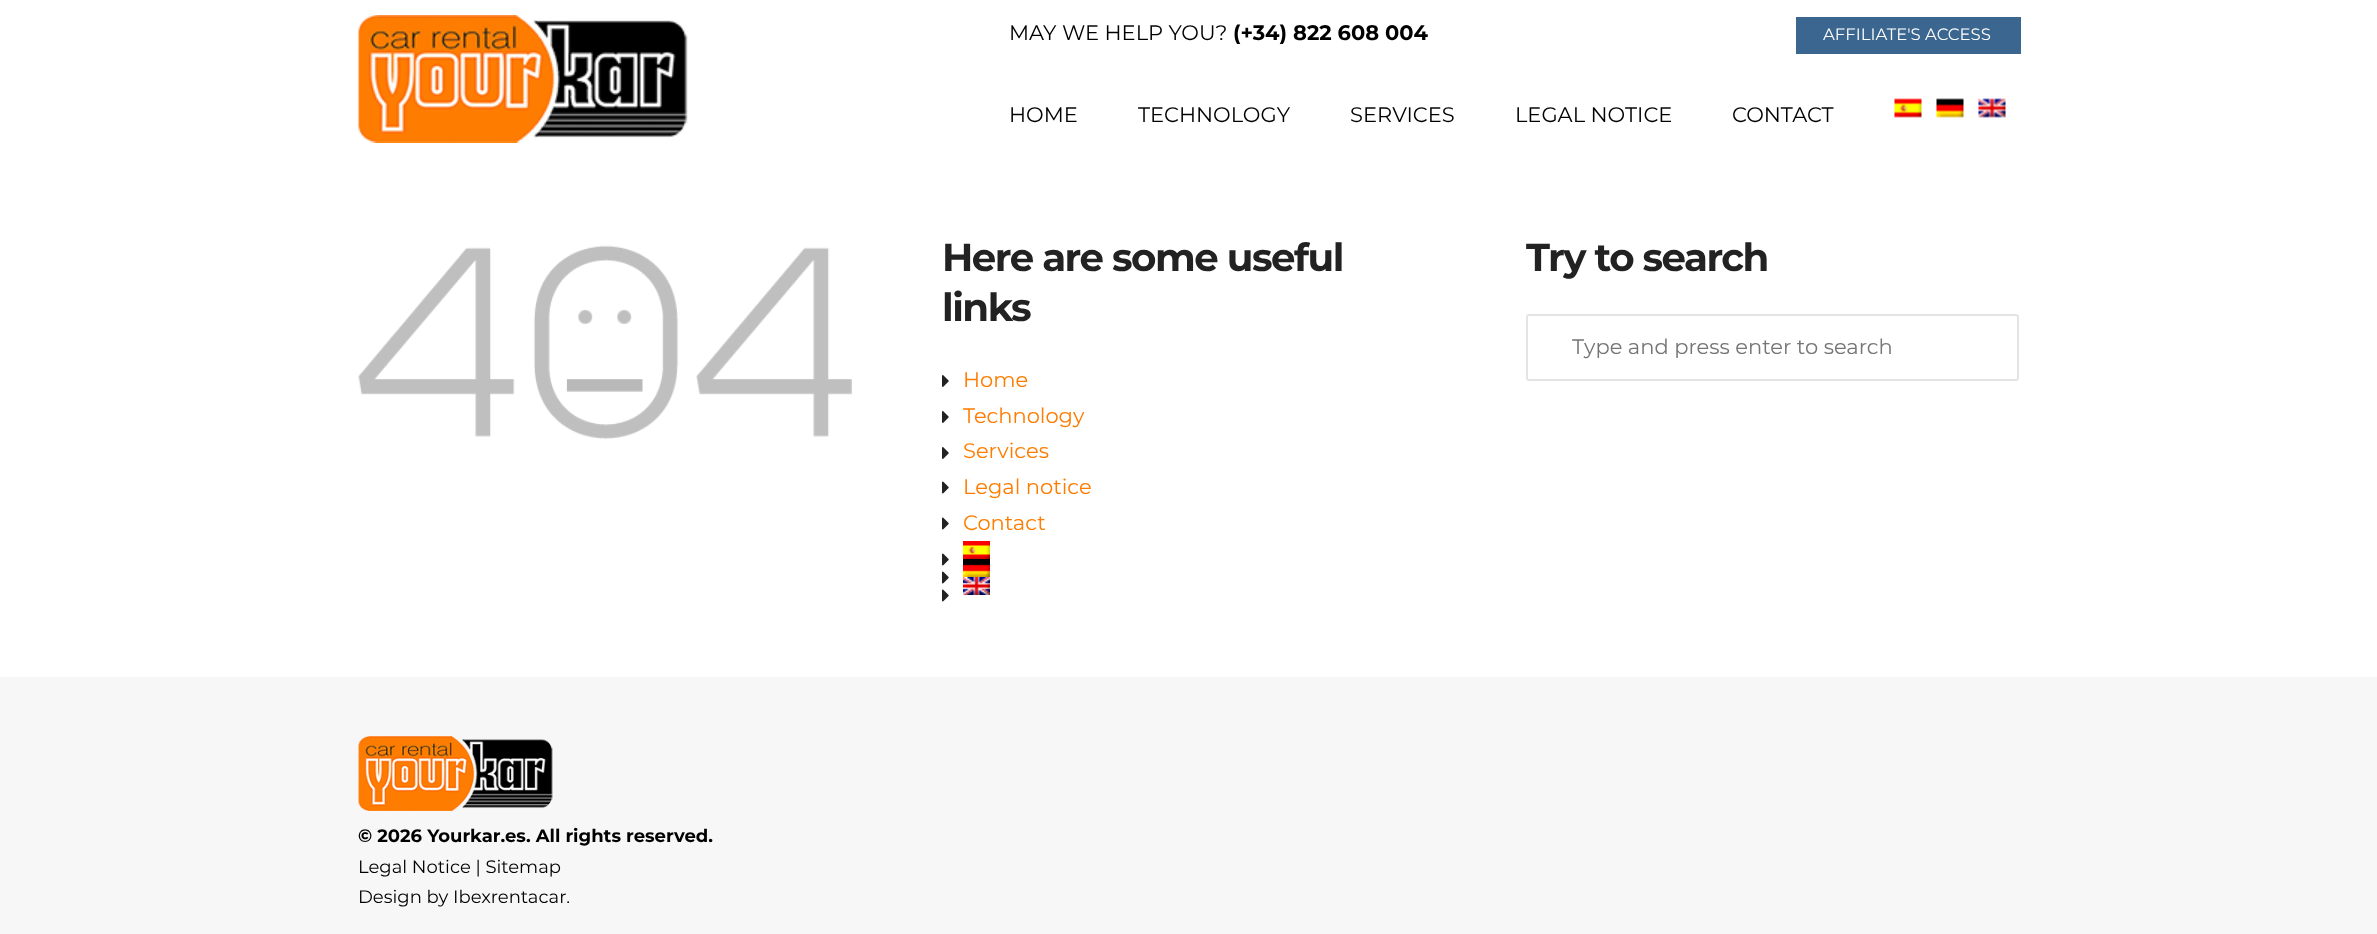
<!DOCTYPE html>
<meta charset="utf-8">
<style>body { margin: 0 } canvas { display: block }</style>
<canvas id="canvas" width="2377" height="934"></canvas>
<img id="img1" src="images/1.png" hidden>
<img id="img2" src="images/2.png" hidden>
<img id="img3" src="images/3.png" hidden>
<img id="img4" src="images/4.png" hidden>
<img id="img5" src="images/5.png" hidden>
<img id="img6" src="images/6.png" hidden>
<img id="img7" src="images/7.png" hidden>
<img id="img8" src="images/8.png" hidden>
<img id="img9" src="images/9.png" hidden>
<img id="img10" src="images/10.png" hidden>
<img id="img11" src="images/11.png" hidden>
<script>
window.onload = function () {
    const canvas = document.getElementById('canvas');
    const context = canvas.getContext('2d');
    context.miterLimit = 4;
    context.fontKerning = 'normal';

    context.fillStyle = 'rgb(255, 255, 255)';
    context.fillRect(0, 0, 2377, 934);
    context.drawImage(document.getElementById('img1'), 358, 15, 330, 128);
    context.fillStyle = 'rgb(58, 102, 144)';
    context.fillRect(1796, 17, 225, 37);
    context.drawImage(document.getElementById('img2'), 1894, 98, 28, 20);
    context.drawImage(document.getElementById('img3'), 1936, 98, 28, 20);
    context.drawImage(document.getElementById('img4'), 1978, 98, 28, 20);
    context.drawImage(document.getElementById('img5'), 358, 245, 494, 194);
    context.drawImage(document.getElementById('img6'), 942, 375, 7, 12);
    context.drawImage(document.getElementById('img6'), 942, 411, 7, 12);
    context.drawImage(document.getElementById('img6'), 942, 447, 7, 12);
    context.drawImage(document.getElementById('img7'), 942, 481, 7, 13);
    context.drawImage(document.getElementById('img7'), 942, 517, 7, 13);
    context.drawImage(document.getElementById('img7'), 942, 553, 7, 13);
    context.drawImage(document.getElementById('img8'), 963, 541, 27, 18);
    context.drawImage(document.getElementById('img7'), 942, 571, 7, 13);
    context.drawImage(document.getElementById('img9'), 963, 559, 27, 18);
    context.drawImage(document.getElementById('img7'), 942, 589, 7, 13);
    context.drawImage(document.getElementById('img10'), 963, 577, 27, 18);
    context.beginPath();
    context.roundRect(1527, 315, 491, 65, 2);
    context.strokeStyle = 'rgb(228, 228, 228)';
    context.lineWidth = 2;
    context.stroke();
    context.fillStyle = 'rgb(247, 247, 247)';
    context.fillRect(0, 677, 2377, 257);
    context.drawImage(document.getElementById('img11'), 358, 736, 195, 75);
    context.font = '21px Montserrat';
    context.fillStyle = 'rgb(0, 0, 0)';
    context.fillText('MAY WE HELP YOU?', 1009, 40);
    context.font = 'bold 21px Montserrat';
    context.fillText('(+34) 822 608 004', 1233, 40);
    context.font = '16.5px Montserrat';
    context.fillStyle = 'rgb(255, 255, 255)';
    context.fillText('AFFILIATE\'S ACCESS', 1823, 40);
    context.font = '21px Montserrat';
    context.fillStyle = 'rgb(0, 0, 0)';
    context.fillText('HOME', 1009, 122);
    context.fillText('TECHNOLOGY', 1138, 122);
    context.fillText('SERVICES', 1350, 122);
    context.fillText('LEGAL NOTICE', 1515, 122);
    context.fillText('CONTACT', 1732, 122);
    context.letterSpacing = '-1.5px';
    context.font = 'bold 38.8px Montserrat';
    context.fillStyle = 'rgb(34, 34, 34)';
    context.fillText('Here are some useful', 942, 271);
    context.fillText('links', 942, 321);
    context.letterSpacing = '0px';
    context.font = '21px Montserrat';
    context.fillStyle = 'rgb(254, 124, 0)';
    context.fillText('Home', 963, 387);
    context.fillText('Technology', 963, 423);
    context.fillText('Services', 963, 458);
    context.fillText('Legal notice', 963, 494);
    context.fillText('Contact', 963, 530);
    context.letterSpacing = '-1.5px';
    context.font = 'bold 38.8px Montserrat';
    context.fillStyle = 'rgb(34, 34, 34)';
    context.fillText('Try to search', 1526, 271);
    context.letterSpacing = '0px';
    context.font = '21px Montserrat';
    context.fillStyle = 'rgb(117, 117, 117)';
    context.fillText('Type and press enter to search', 1572, 354);
    context.font = 'bold 18px Montserrat';
    context.fillStyle = 'rgb(0, 0, 0)';
    context.fillText('© 2026 Yourkar.es. All rights reserved.', 358, 842);
    context.font = '18px Montserrat';
    context.fillText('Legal Notice | Sitemap', 358, 873);
    context.fillText('Design by Ibexrentacar.', 358, 903);
};
</script>
